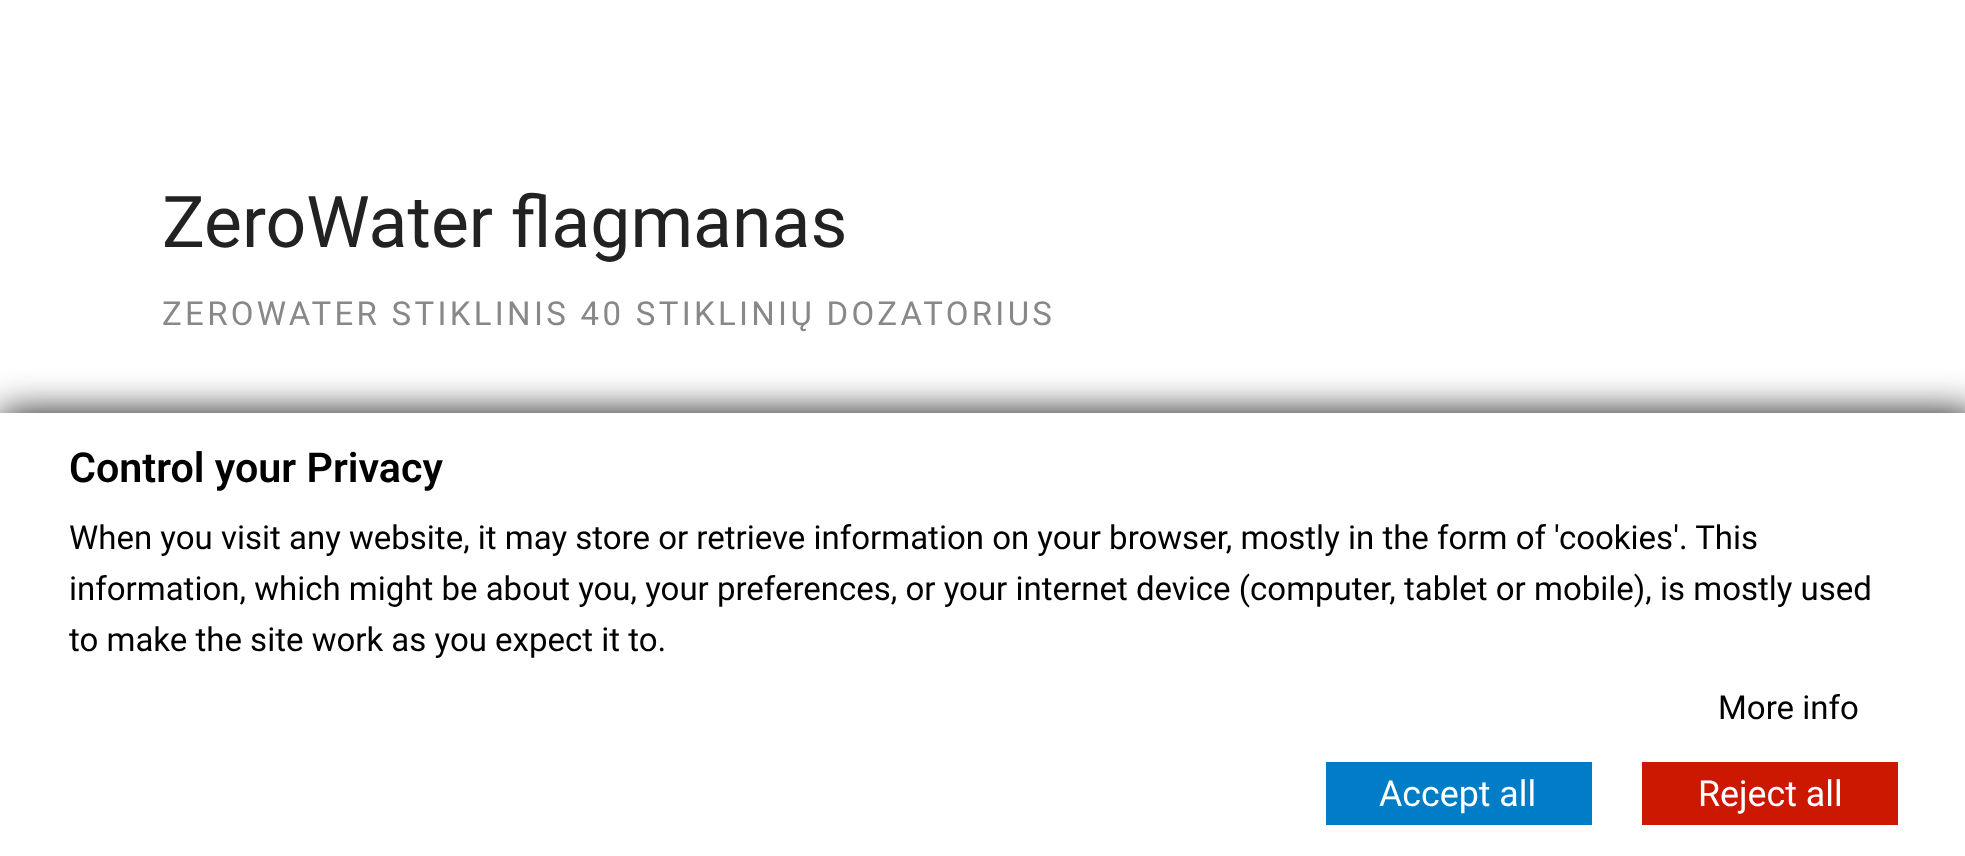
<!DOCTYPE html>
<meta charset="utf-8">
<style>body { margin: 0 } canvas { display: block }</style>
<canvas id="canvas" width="1965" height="856"></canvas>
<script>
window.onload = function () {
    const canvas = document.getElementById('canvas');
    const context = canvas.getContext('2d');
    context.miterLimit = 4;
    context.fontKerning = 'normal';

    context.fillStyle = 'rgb(255, 255, 255)';
    context.fillRect(0, 0, 1965, 856);
    context.fillStyle = 'rgb(18, 18, 18)';
    context.filter = 'blur(19px)';
    context.beginPath();
    context.rect(0, 413, 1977, 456);
    context.fill();
    context.filter = 'none';
    context.fillStyle = 'rgb(255, 255, 255)';
    context.fillRect(0, 413, 1965, 443);
    context.fillStyle = 'rgb(0, 125, 198)';
    context.fillRect(1326, 762, 266, 63);
    context.fillStyle = 'rgb(204, 24, 0)';
    context.fillRect(1642, 762, 256, 63);
    context.font = '71.5px Roboto';
    context.fillStyle = 'rgb(34, 34, 34)';
    context.fillText('ZeroWater flagmanas', 162, 247);
    context.letterSpacing = '3.3px';
    context.font = '33px Roboto';
    context.fillStyle = 'rgb(136, 136, 136)';
    context.fillText('ZEROWATER STIKLINIS 40 STIKLINIŲ DOZATORIUS', 162, 325);
    context.letterSpacing = '0px';
    context.font = '600 41.25px Roboto';
    context.fillStyle = 'rgb(0, 0, 0)';
    context.fillText('Control your Privacy', 69, 482);
    context.font = '33px Roboto';
    context.fillText('When you visit any website, it may store or retrieve information on your browser, mostly in the form of \'cookies\'. This', 69, 549);
    context.fillText('information, which might be about you, your preferences, or your internet device (computer, tablet or mobile), is mostly used', 69, 600);
    context.fillText('to make the site work as you expect it to.', 69, 651);
    context.fillText('More info', 1718, 719);
    context.font = '35.75px Roboto';
    context.fillStyle = 'rgb(255, 255, 255)';
    context.fillText('Accept all', 1379, 806);
    context.fillText('Reject all', 1698, 806);
};
</script>
